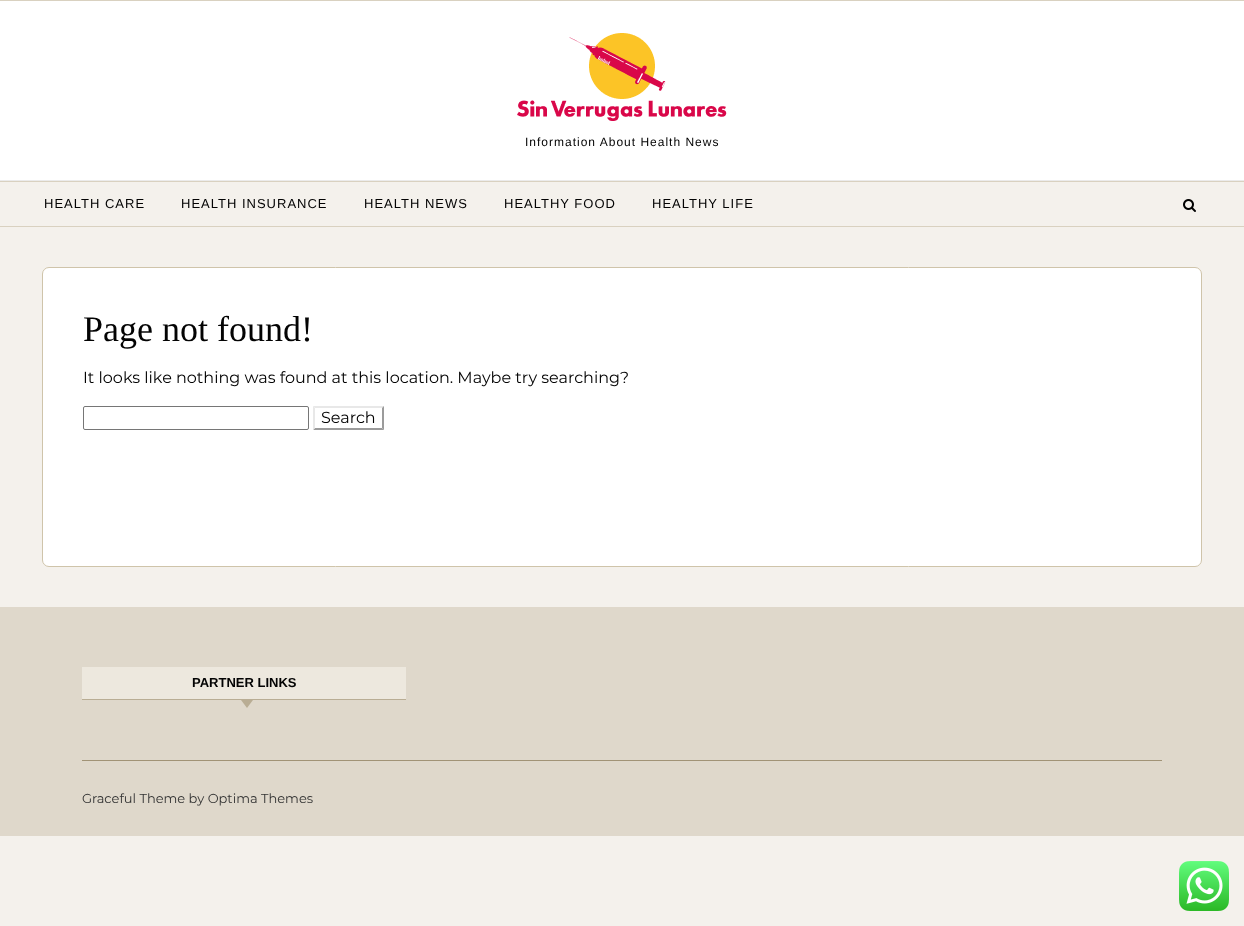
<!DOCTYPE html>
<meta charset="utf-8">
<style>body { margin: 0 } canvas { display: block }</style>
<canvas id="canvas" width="1244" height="926"></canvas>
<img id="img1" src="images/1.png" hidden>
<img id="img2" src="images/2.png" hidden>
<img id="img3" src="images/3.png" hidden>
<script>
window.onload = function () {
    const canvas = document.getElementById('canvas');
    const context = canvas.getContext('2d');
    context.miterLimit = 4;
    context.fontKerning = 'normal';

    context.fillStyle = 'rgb(244, 241, 236)';
    context.fillRect(0, 0, 1244, 926);
    context.fillStyle = 'rgb(217, 209, 192)';
    context.fillRect(0, 0, 1244, 1);
    context.fillStyle = 'rgb(255, 255, 255)';
    context.fillRect(0, 1, 1244, 179);
    context.fillStyle = 'rgb(235, 235, 235)';
    context.fillRect(0, 180, 1244, 1);
    context.drawImage(document.getElementById('img1'), 517, 33, 210, 88);
    context.fillStyle = 'rgb(217, 209, 192)';
    context.fillRect(0, 181, 1244, 1);
    context.fillRect(0, 226, 1244, 1);
    context.drawImage(document.getElementById('img2'), 1183, 199, 13, 13);
    context.fillStyle = 'rgb(255, 255, 255)';
    context.beginPath();
    context.roundRect(42.5, 267.5, 1159, 299, 6.5);
    context.fill();
    context.strokeStyle = 'rgb(207, 196, 170)';
    context.stroke();
    context.beginPath();
    context.roundRect(83.5, 406.5, 225, 23, 1.5);
    context.strokeStyle = 'rgb(118, 118, 118)';
    context.stroke();
    context.fillStyle = 'rgb(232, 232, 232)';
    context.beginPath();
    context.moveTo(313, 406);
    context.lineTo(384, 406);
    context.lineTo(382, 408);
    context.lineTo(315, 408);
    context.closePath();
    context.fill();
    context.fillStyle = 'rgb(155, 155, 155)';
    context.beginPath();
    context.moveTo(384, 406);
    context.lineTo(384, 430);
    context.lineTo(382, 428);
    context.lineTo(382, 408);
    context.closePath();
    context.fill();
    context.beginPath();
    context.moveTo(384, 430);
    context.lineTo(313, 430);
    context.lineTo(315, 428);
    context.lineTo(382, 428);
    context.closePath();
    context.fill();
    context.fillStyle = 'rgb(232, 232, 232)';
    context.beginPath();
    context.moveTo(313, 430);
    context.lineTo(313, 406);
    context.lineTo(315, 408);
    context.lineTo(315, 428);
    context.closePath();
    context.fill();
    context.fillStyle = 'rgb(223, 216, 203)';
    context.fillRect(0, 607, 1244, 229);
    context.fillStyle = 'rgb(161, 147, 118)';
    context.fillRect(82, 760, 1080, 1);
    context.fillStyle = 'rgb(237, 232, 222)';
    context.fillRect(82, 667, 324, 32);
    context.fillStyle = 'rgb(185, 173, 148)';
    context.fillRect(82, 699, 324, 1);
    context.beginPath();
    context.moveTo(241, 700);
    context.lineTo(253, 700);
    context.lineTo(247, 708);
    context.closePath();
    context.fill();
    context.drawImage(document.getElementById('img3'), 1179, 861, 50, 50);
    context.letterSpacing = '1px';
    context.font = '12px Liberation Sans';
    context.fillStyle = 'rgb(3, 3, 3)';
    context.fillText('Information About Health News', 525, 146);
    context.font = '13px Liberation Sans';
    context.fillText('HEALTH CARE', 44, 208);
    context.fillText('HEALTH INSURANCE', 181, 208);
    context.fillText('HEALTH NEWS', 364, 208);
    context.fillText('HEALTHY FOOD', 504, 208);
    context.fillText('HEALTHY LIFE', 652, 208);
    context.letterSpacing = '0px';
    context.font = '36px Liberation Serif';
    context.fillText('Page not found!', 83, 341);
    context.font = '100 16px Montserrat';
    context.fillText('It looks like nothing was found at this location. Maybe try searching?', 83, 383);
    context.fillText('Search', 321, 423);
    context.font = 'bold 13px Liberation Sans';
    context.fillText('PARTNER LINKS', 192, 687);
    context.font = '100 13px Montserrat';
    context.fillStyle = 'rgb(51, 51, 51)';
    context.fillText('Graceful Theme by Optima Themes', 82, 803);
};
</script>
